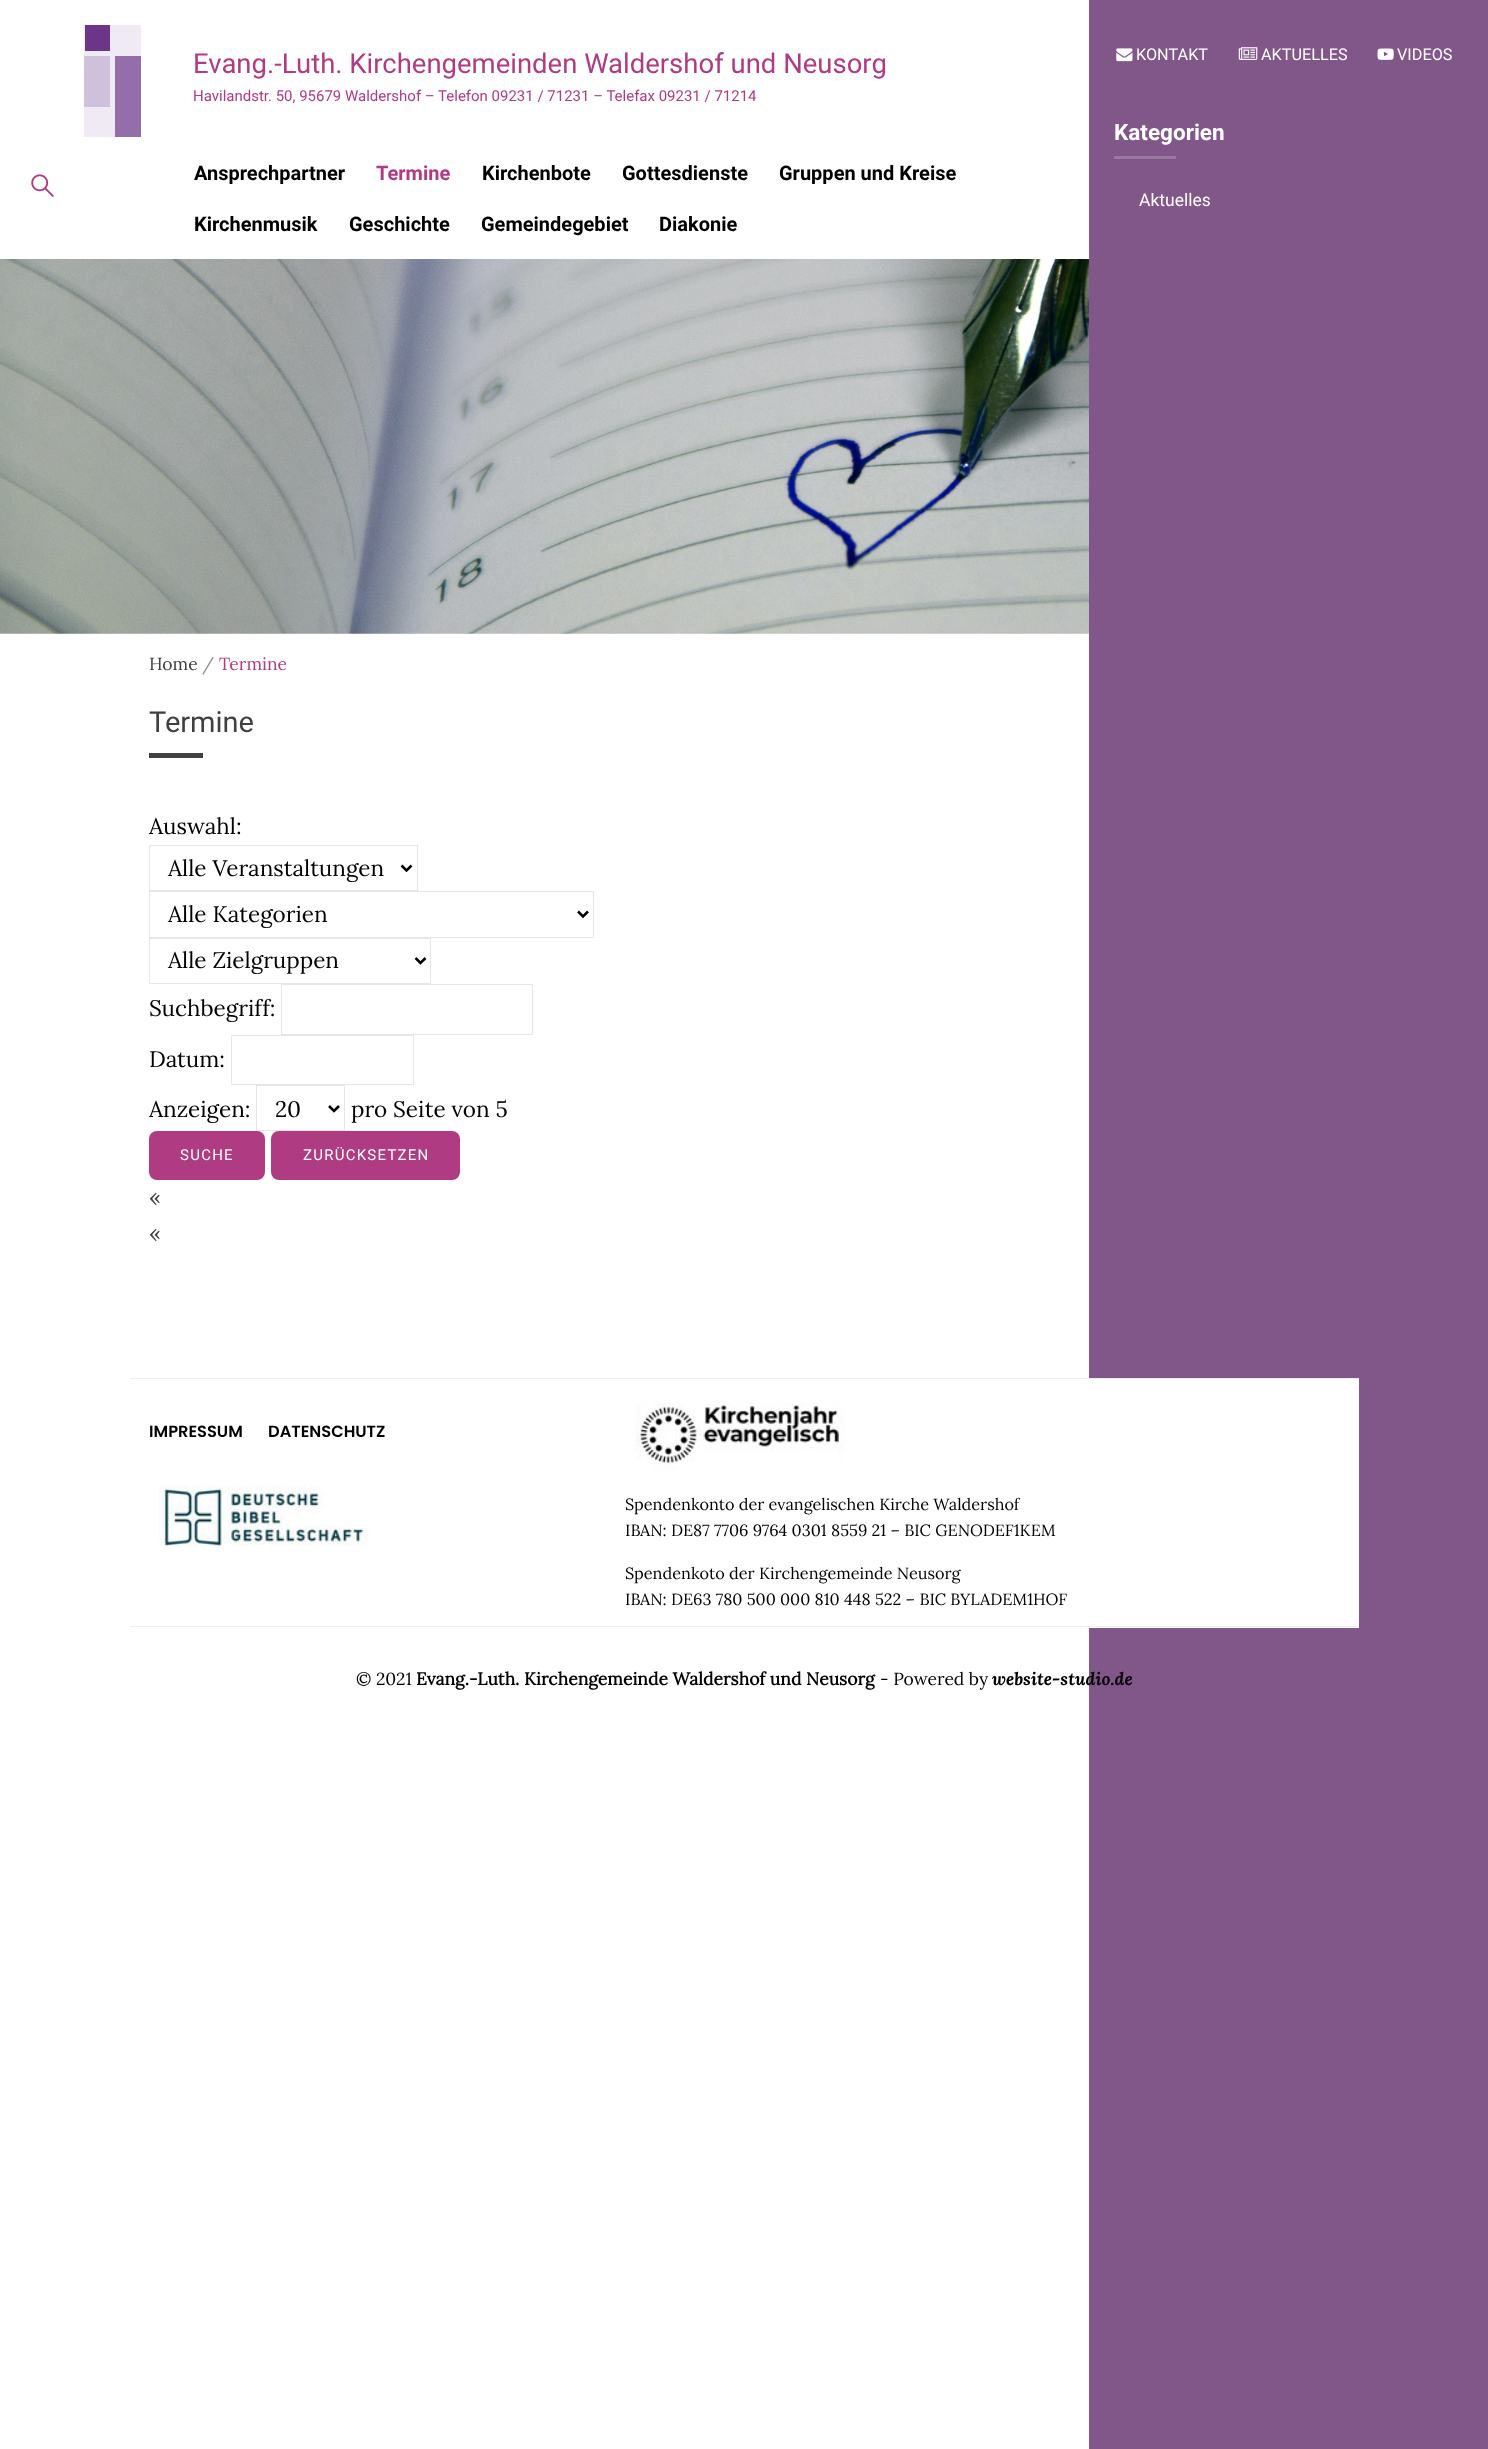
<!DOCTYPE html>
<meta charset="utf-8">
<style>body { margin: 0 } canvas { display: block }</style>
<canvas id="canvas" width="1488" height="2449"></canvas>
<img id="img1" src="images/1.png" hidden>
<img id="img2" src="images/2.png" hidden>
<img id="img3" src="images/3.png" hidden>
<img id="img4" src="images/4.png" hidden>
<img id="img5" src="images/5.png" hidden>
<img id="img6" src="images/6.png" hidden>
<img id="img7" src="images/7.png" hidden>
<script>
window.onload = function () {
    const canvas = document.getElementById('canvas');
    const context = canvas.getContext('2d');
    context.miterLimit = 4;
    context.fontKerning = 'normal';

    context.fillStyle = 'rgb(255, 255, 255)';
    context.fillRect(0, 0, 1488, 2449);
    context.fillStyle = 'rgb(239, 234, 243)';
    context.fillRect(84, 25, 57, 112);
    context.fillStyle = 'rgb(107, 54, 137)';
    context.fillRect(85, 25, 25, 26);
    context.fillStyle = 'rgb(207, 192, 220)';
    context.fillRect(84, 56, 26, 51);
    context.fillStyle = 'rgb(148, 110, 169)';
    context.fillRect(115, 56, 26, 81);
    context.fillStyle = 'rgb(129, 87, 138)';
    context.fillRect(1089, 0, 399, 2449);
    context.drawImage(document.getElementById('img1'), 1116, 48, 17, 14);
    context.drawImage(document.getElementById('img2'), 1238, 47, 20, 13);
    context.drawImage(document.getElementById('img3'), 1377, 48, 17, 12);
    context.fillStyle = 'rgb(154, 121, 161)';
    context.fillRect(1114, 156, 62, 3);
    context.drawImage(document.getElementById('img4'), 31, 174, 23, 23);
    context.drawImage(document.getElementById('img5'), 0, 259, 1089, 375);
    context.fillStyle = 'rgb(64, 64, 64)';
    context.fillRect(149, 753, 54, 5);
    context.strokeStyle = 'rgb(230, 230, 230)';
    context.strokeRect(149.5, 845.5, 268, 45);
    context.beginPath();
    context.moveTo(401.5, 865.5);
    context.lineTo(406.5, 870.5);
    context.lineTo(411.5, 865.5);
    context.strokeStyle = 'rgb(0, 0, 0)';
    context.lineWidth = 2.5;
    context.stroke();
    context.strokeStyle = 'rgb(230, 230, 230)';
    context.lineWidth = 1;
    context.strokeRect(149.5, 891.5, 444, 46);
    context.beginPath();
    context.moveTo(578, 911.5);
    context.lineTo(583, 916.5);
    context.lineTo(588, 911.5);
    context.strokeStyle = 'rgb(0, 0, 0)';
    context.lineWidth = 2.5;
    context.stroke();
    context.strokeStyle = 'rgb(230, 230, 230)';
    context.lineWidth = 1;
    context.strokeRect(149.5, 938.5, 281, 45);
    context.beginPath();
    context.moveTo(415.5, 958);
    context.lineTo(420.5, 963);
    context.lineTo(425.5, 958);
    context.strokeStyle = 'rgb(0, 0, 0)';
    context.lineWidth = 2.5;
    context.stroke();
    context.strokeStyle = 'rgb(230, 230, 230)';
    context.lineWidth = 1;
    context.strokeRect(281.5, 984.5, 251, 50);
    context.strokeRect(231.5, 1035.5, 182, 49);
    context.strokeRect(256.5, 1085.5, 88, 45);
    context.beginPath();
    context.moveTo(329, 1106);
    context.lineTo(334, 1111);
    context.lineTo(339, 1106);
    context.strokeStyle = 'rgb(0, 0, 0)';
    context.lineWidth = 2.5;
    context.stroke();
    context.fillStyle = 'rgb(175, 59, 130)';
    context.beginPath();
    context.roundRect(149, 1131, 116, 49, 8);
    context.fill();
    context.beginPath();
    context.roundRect(271, 1131, 189, 49, 8);
    context.fill();
    context.fillStyle = 'rgb(255, 255, 255)';
    context.fillRect(1089, 1379, 270, 249);
    context.fillStyle = 'rgb(238, 238, 238)';
    context.fillRect(130, 1378, 1229, 1);
    context.fillRect(130, 1626, 1229, 1);
    context.drawImage(document.getElementById('img6'), 635, 1402, 210, 69);
    context.drawImage(document.getElementById('img7'), 159, 1485, 210, 63);
    context.font = '27.5px Roboto';
    context.fillStyle = 'rgb(175, 59, 130)';
    context.fillText('Evang.-Luth. Kirchengemeinden Waldershof und Neusorg', 193, 73);
    context.font = '15px Roboto';
    context.fillText('Havilandstr. 50, 95679 Waldershof – Telefon 09231 / 71231 – Telefax 09231 / 71214', 193, 101);
    context.font = '16.25px Roboto';
    context.fillStyle = 'rgb(255, 255, 255)';
    context.fillText('KONTAKT', 1136, 60);
    context.fillText('AKTUELLES', 1261, 60);
    context.fillText('VIDEOS', 1397, 60);
    context.font = 'bold 22.5px Roboto';
    context.fillText('Kategorien', 1114, 140);
    context.font = '17.5px Roboto';
    context.fillText('Aktuelles', 1139, 206);
    context.font = 'bold 20px Roboto';
    context.fillStyle = 'rgb(0, 0, 0)';
    context.fillText('Ansprechpartner', 194, 180);
    context.fillStyle = 'rgb(175, 59, 130)';
    context.fillText('Termine', 376, 180);
    context.fillStyle = 'rgb(0, 0, 0)';
    context.fillText('Kirchenbote', 482, 180);
    context.fillText('Gottesdienste', 622, 180);
    context.fillText('Gruppen und Kreise', 779, 180);
    context.fillText('Kirchenmusik', 194, 231);
    context.fillText('Geschichte', 349, 231);
    context.fillText('Gemeindegebiet', 481, 231);
    context.fillText('Diakonie', 659, 231);
    context.font = '17.5px Lora';
    context.fillStyle = 'rgb(64, 64, 64)';
    context.fillText('Home', 149, 670);
    context.fillStyle = 'rgb(140, 140, 140)';
    context.fillText('/', 202, 670);
    context.fillStyle = 'rgb(175, 59, 130)';
    context.fillText('Termine', 219, 670);
    context.font = '29px Roboto';
    context.fillStyle = 'rgb(64, 64, 64)';
    context.fillText('Termine', 149, 732);
    context.font = '22.5px Lora';
    context.fillStyle = 'rgb(0, 0, 0)';
    context.fillText('Auswahl:', 149, 834);
    context.fillText('Alle Veranstaltungen', 168, 876);
    context.fillText('Alle Kategorien', 168, 922);
    context.fillText('Alle Zielgruppen', 168, 968);
    context.fillText('Suchbegriff:', 149, 1016);
    context.fillText('Datum:', 149, 1067);
    context.fillText('Anzeigen:', 149, 1117);
    context.fillText('20', 275, 1117);
    context.fillText('pro Seite von 5', 351, 1117);
    context.letterSpacing = '1.25px';
    context.font = '15px Roboto';
    context.fillStyle = 'rgb(255, 255, 255)';
    context.fillText('SUCHE', 180, 1160);
    context.fillText('ZURÜCKSETZEN', 303, 1160);
    context.letterSpacing = '0px';
    context.font = '22.5px Lora';
    context.fillStyle = 'rgb(64, 64, 64)';
    context.fillText('«', 149, 1205);
    context.fillText('«', 149, 1241);
    context.font = '600 16.25px Poppins';
    context.fillStyle = 'rgb(0, 0, 0)';
    context.fillText('IMPRESSUM', 149, 1437);
    context.fillText('DATENSCHUTZ', 268, 1437);
    context.font = '16.25px Lora';
    context.fillText('Spendenkonto der evangelischen Kirche Waldershof', 625, 1510);
    context.fillText('IBAN: DE87 7706 9764 0301 8559 21 – BIC GENODEF1KEM', 625, 1536);
    context.fillText('Spendenkoto der Kirchengemeinde Neusorg', 625, 1579);
    context.fillText('IBAN: DE63 780 500 000 810 448 522 – BIC BYLADEM1HOF', 625, 1605);
    context.font = '17.5px Lora';
    context.fillText('© 2021', 356, 1685);
    context.font = 'bold 17.5px Lora';
    context.fillText('Evang.-Luth. Kirchengemeinde Waldershof und Neusorg', 416, 1685);
    context.font = '17.5px Lora';
    context.fillText('- Powered by', 880, 1685);
    context.font = 'italic bold 17.5px Lora';
    context.fillText('website-studio.de', 992, 1685);
};
</script>
